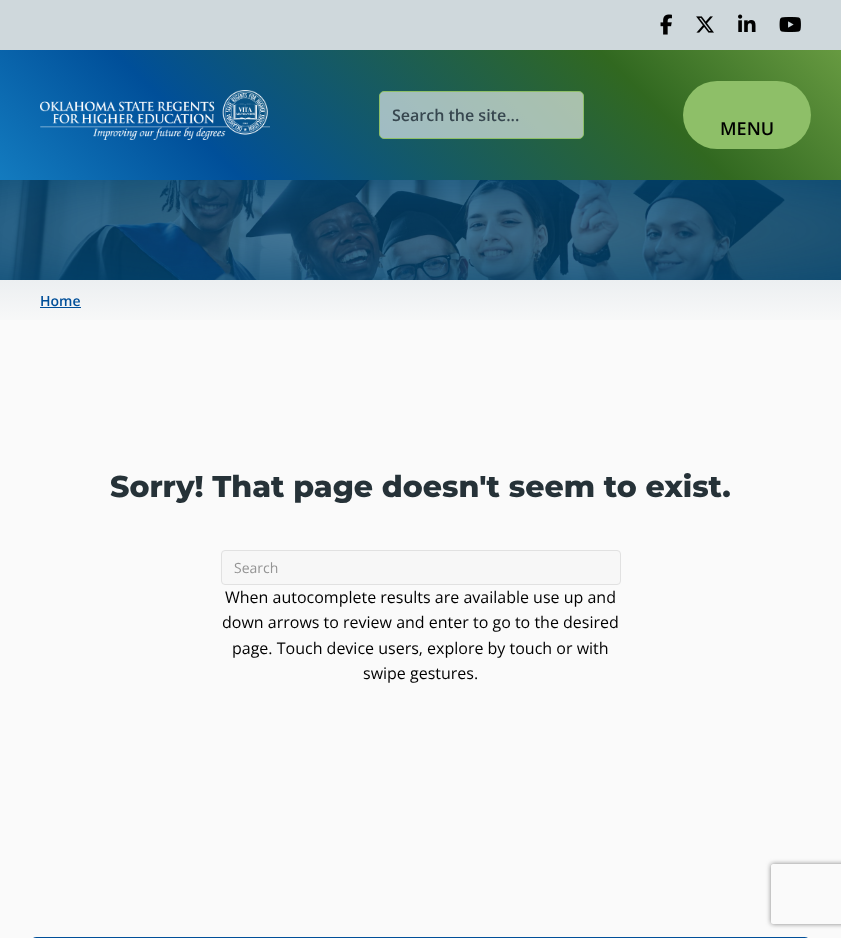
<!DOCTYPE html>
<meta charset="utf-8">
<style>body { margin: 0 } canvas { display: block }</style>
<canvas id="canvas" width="841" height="938"></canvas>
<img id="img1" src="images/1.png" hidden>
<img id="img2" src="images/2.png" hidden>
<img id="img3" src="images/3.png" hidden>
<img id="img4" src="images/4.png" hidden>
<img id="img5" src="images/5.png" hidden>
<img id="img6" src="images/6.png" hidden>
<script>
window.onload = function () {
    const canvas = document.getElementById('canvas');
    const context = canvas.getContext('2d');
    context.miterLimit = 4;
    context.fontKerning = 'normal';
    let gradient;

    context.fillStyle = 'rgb(250, 250, 250)';
    context.fillRect(0, 0, 841, 938);
    context.fillStyle = 'rgb(207, 216, 220)';
    context.fillRect(0, 0, 841, 50);
    context.drawImage(document.getElementById('img1'), 660, 14, 12, 21);
    context.drawImage(document.getElementById('img2'), 696, 16, 18, 17);
    context.drawImage(document.getElementById('img3'), 738, 14, 18, 18);
    context.drawImage(document.getElementById('img4'), 779, 17, 22, 15);
    gradient = context.createLinearGradient(178, 358, 663, -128);
    gradient.addColorStop(0, 'rgb(19, 123, 191)');
    gradient.addColorStop(0.25, 'rgb(0, 79, 153)');
    gradient.addColorStop(0.75, 'rgb(49, 104, 32)');
    gradient.addColorStop(1, 'rgb(103, 154, 65)');
    context.fillStyle = gradient;
    context.fillRect(0, 50, 841, 130);
    context.drawImage(document.getElementById('img5'), 40, 90, 230, 50);
    context.fillStyle = 'rgba(255, 255, 255, 0.6)';
    context.beginPath();
    context.roundRect(379.5, 91.5, 204, 47, 4.5);
    context.fill();
    context.strokeStyle = 'rgb(142, 191, 104)';
    context.stroke();
    context.fillStyle = 'rgb(142, 191, 104)';
    context.beginPath();
    context.roundRect(683, 81, 128, 68, 34);
    context.fill();
    context.drawImage(document.getElementById('img6'), 0, 180, 841, 100);
    gradient = context.createLinearGradient(421, 280, 421, 329);
    gradient.addColorStop(0, 'rgb(236, 239, 241)');
    gradient.addColorStop(1, 'rgb(250, 250, 250)');
    context.fillStyle = gradient;
    context.fillRect(0, 280, 841, 40);
    context.fillStyle = 'rgb(0, 79, 153)';
    context.fillRect(40, 307, 41, 1);
    context.fillStyle = 'rgb(247, 247, 247)';
    context.beginPath();
    context.roundRect(221.5, 550.5, 399, 34, 3.5);
    context.fill();
    context.strokeStyle = 'rgb(225, 225, 225)';
    context.stroke();
    context.fillStyle = 'rgb(0, 79, 153)';
    context.beginPath();
    context.roundRect(30, 937, 781, 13, 12);
    context.fill();
    context.save();
    context.beginPath();
    context.moveTo(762, 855);
    context.lineTo(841, 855);
    context.lineTo(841, 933);
    context.lineTo(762, 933);
    context.closePath();
    context.moveTo(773, 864);
    context.lineTo(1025, 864);
    context.bezierCurveTo(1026, 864, 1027, 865, 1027, 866);
    context.lineTo(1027, 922);
    context.bezierCurveTo(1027, 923, 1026, 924, 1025, 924);
    context.lineTo(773, 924);
    context.bezierCurveTo(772, 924, 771, 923, 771, 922);
    context.lineTo(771, 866);
    context.bezierCurveTo(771, 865, 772, 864, 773, 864);
    context.closePath();
    context.clip('evenodd');
    context.fillStyle = 'rgb(128, 128, 128)';
    context.filter = 'blur(2.5px)';
    context.beginPath();
    context.roundRect(771, 864, 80, 60, 2);
    context.fill();
    context.filter = 'none';
    context.restore();
    context.font = '600 16px Open Sans';
    context.fillStyle = 'rgb(55, 71, 79)';
    context.fillText('Search the site...', 392, 121);
    context.font = '600 18px Open Sans';
    context.fillStyle = 'rgb(0, 0, 0)';
    context.fillText('MENU', 720, 135);
    context.font = '600 14px Open Sans';
    context.fillStyle = 'rgb(0, 79, 153)';
    context.fillText('Home', 40, 306);
    context.font = '800 30px Montserrat';
    context.fillStyle = 'rgb(38, 50, 56)';
    context.fillText('Sorry! That page doesn\'t seem to exist.', 110, 497);
    context.font = '14px Open Sans';
    context.fillStyle = 'rgb(148, 148, 148)';
    context.fillText('Search', 234, 573);
    context.font = '16px Open Sans';
    context.fillStyle = 'rgb(0, 0, 0)';
    context.fillText('When autocomplete results are available use up and', 225, 603);
    context.fillText('down arrows to review and enter to go to the desired', 222, 628);
    context.fillText('page. Touch device users, explore by touch or with', 232, 654);
    context.fillText('swipe gestures.', 363, 679);
};
</script>
